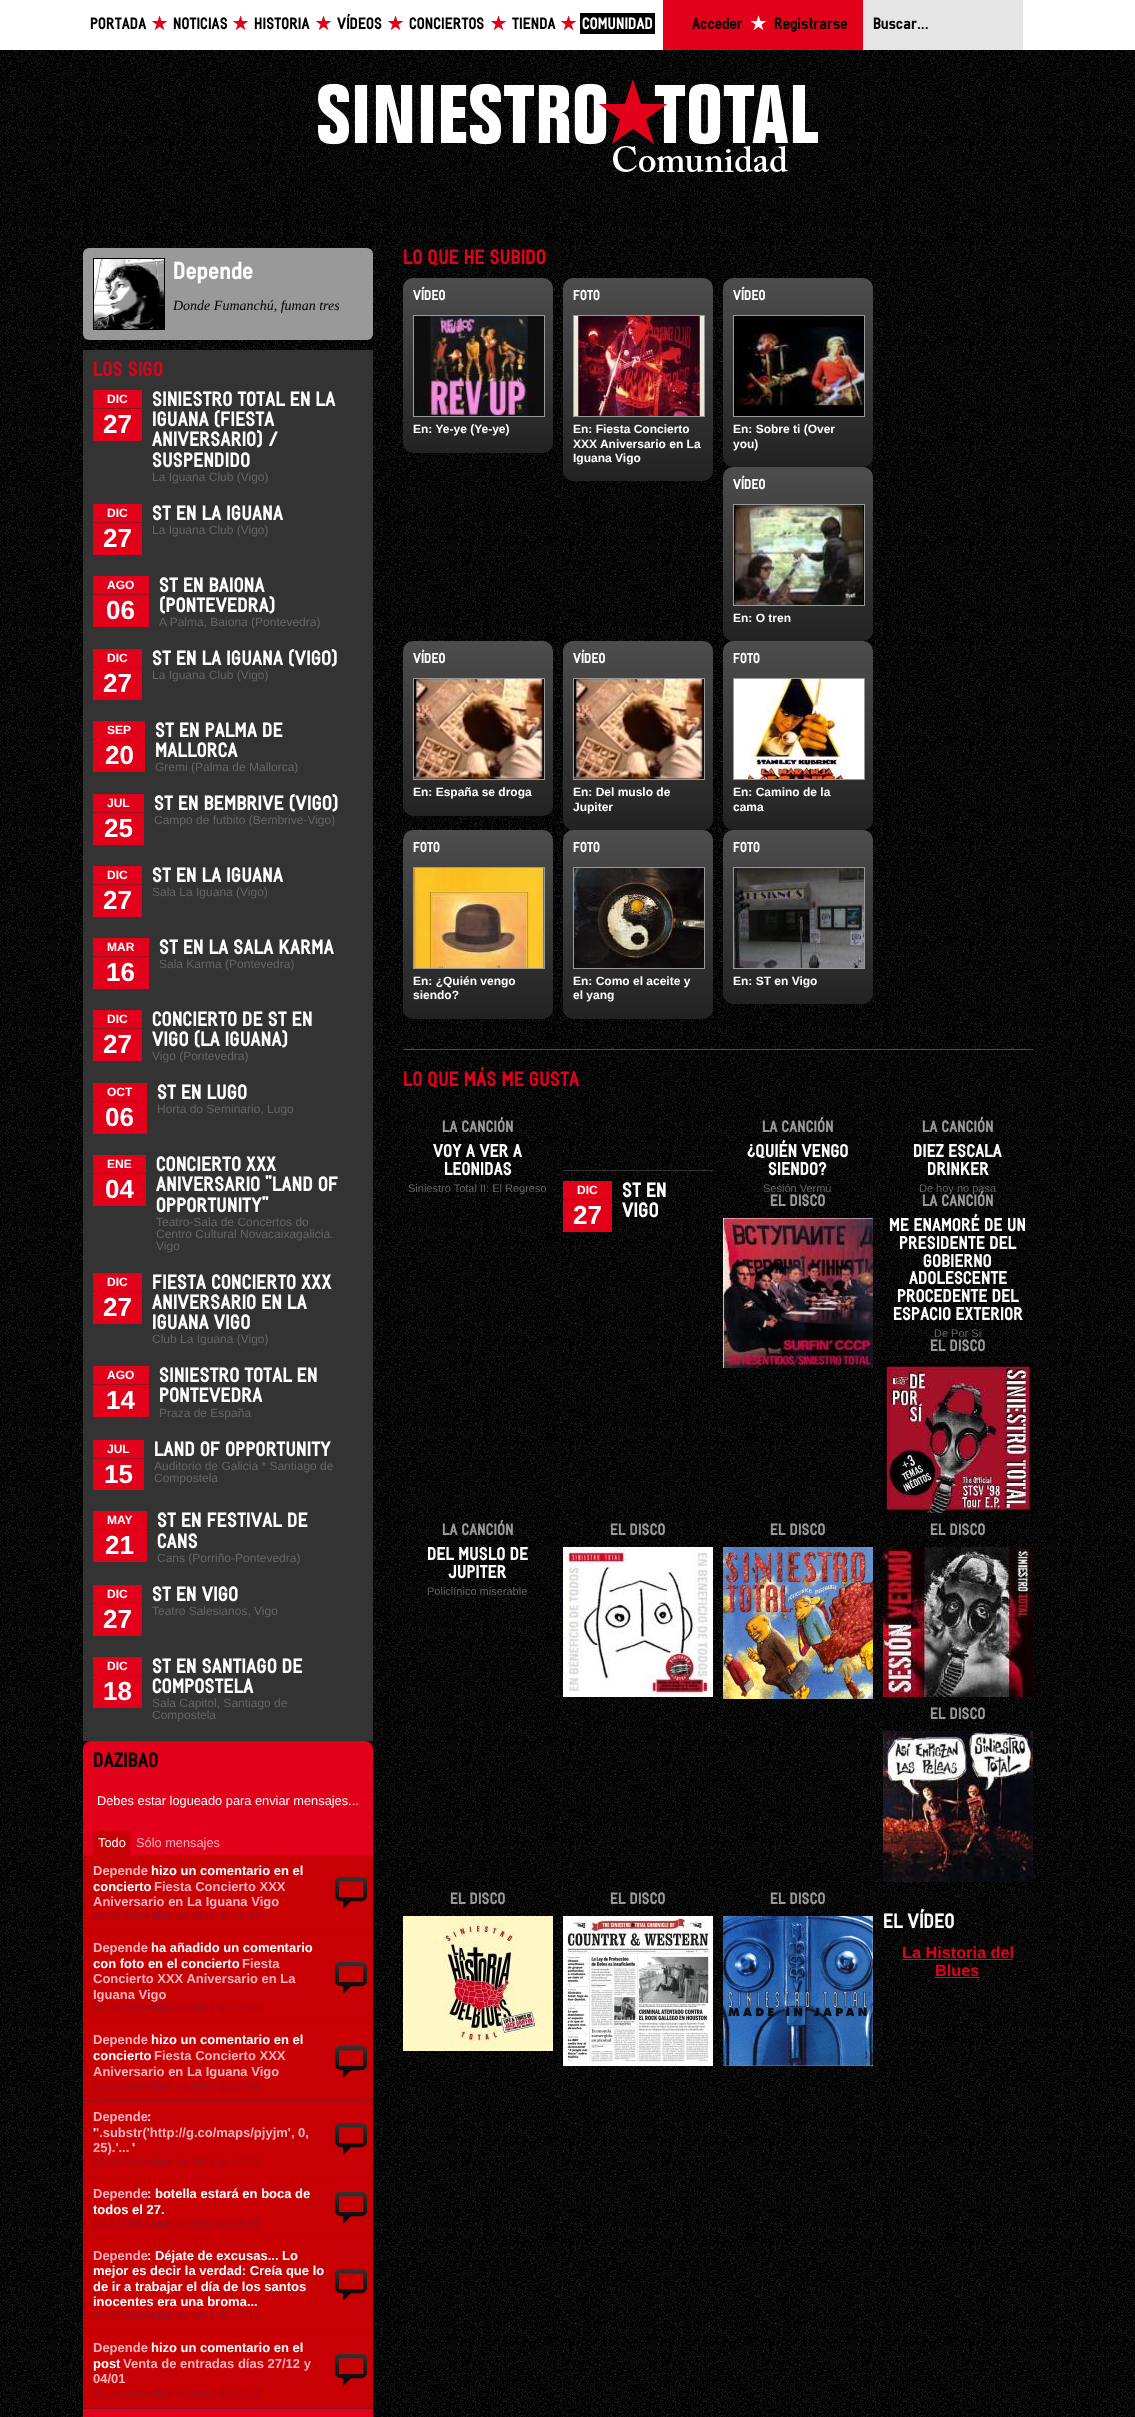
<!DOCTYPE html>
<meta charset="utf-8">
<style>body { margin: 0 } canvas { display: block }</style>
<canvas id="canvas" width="1135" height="2417"></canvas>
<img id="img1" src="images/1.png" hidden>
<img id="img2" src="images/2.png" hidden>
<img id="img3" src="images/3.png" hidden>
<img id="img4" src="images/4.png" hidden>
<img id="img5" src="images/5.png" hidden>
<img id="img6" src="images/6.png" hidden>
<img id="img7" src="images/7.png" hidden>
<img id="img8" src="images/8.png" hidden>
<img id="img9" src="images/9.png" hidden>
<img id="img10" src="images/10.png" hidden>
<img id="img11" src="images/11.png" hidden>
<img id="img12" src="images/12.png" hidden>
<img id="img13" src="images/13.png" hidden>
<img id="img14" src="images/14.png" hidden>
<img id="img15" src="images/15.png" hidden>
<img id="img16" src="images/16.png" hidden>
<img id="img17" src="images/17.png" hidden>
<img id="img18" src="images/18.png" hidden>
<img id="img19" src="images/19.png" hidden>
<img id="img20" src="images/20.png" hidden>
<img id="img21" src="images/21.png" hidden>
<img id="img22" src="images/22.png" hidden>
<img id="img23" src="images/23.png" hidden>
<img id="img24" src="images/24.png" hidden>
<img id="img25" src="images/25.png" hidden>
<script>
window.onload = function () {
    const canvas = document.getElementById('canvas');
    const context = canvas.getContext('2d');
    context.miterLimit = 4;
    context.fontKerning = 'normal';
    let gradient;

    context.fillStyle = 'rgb(255, 255, 255)';
    context.fillRect(0, 0, 1135, 2417);
    context.drawImage(document.getElementById('img1'), 0, 50, 1135, 2367);
    context.drawImage(document.getElementById('img2'), 152, 16, 15, 15);
    context.drawImage(document.getElementById('img2'), 233, 16, 15, 15);
    context.drawImage(document.getElementById('img2'), 316, 16, 15, 15);
    context.drawImage(document.getElementById('img2'), 388, 16, 15, 15);
    context.drawImage(document.getElementById('img2'), 491, 16, 15, 15);
    context.drawImage(document.getElementById('img2'), 561, 16, 15, 15);
    context.fillStyle = 'rgb(0, 0, 0)';
    context.fillRect(580, 13, 75, 21);
    context.fillStyle = 'rgb(226, 0, 26)';
    context.fillRect(663, 0, 200, 50);
    context.drawImage(document.getElementById('img3'), 751, 15, 15, 15);
    context.fillStyle = 'rgb(229, 229, 229)';
    context.fillRect(863, 0, 160, 50);
    context.drawImage(document.getElementById('img4'), 318, 80, 500, 92);
    context.fillStyle = 'rgb(153, 153, 153)';
    context.beginPath();
    context.roundRect(83, 248, 290, 92, 6);
    context.fill();
    context.strokeStyle = 'rgb(0, 0, 0)';
    context.strokeRect(93.5, 258.5, 71, 71);
    context.drawImage(document.getElementById('img5'), 94, 259, 70, 70);
    context.fillStyle = 'rgb(51, 51, 51)';
    context.fillRect(83, 350, 290, 1391);
    context.fillStyle = 'rgb(226, 0, 26)';
    context.fillRect(93, 390, 49, 18);
    context.fillRect(93, 409, 49, 32);
    context.fillStyle = 'rgb(150, 15, 30)';
    context.fillRect(93, 408, 49, 1);
    context.fillStyle = 'rgb(226, 0, 26)';
    context.fillRect(93, 504, 49, 18);
    context.fillRect(93, 523, 49, 32);
    context.fillStyle = 'rgb(150, 15, 30)';
    context.fillRect(93, 522, 49, 1);
    context.fillStyle = 'rgb(226, 0, 26)';
    context.fillRect(93, 576, 56, 18);
    context.fillRect(93, 595, 56, 32);
    context.fillStyle = 'rgb(150, 15, 30)';
    context.fillRect(93, 594, 56, 1);
    context.fillStyle = 'rgb(226, 0, 26)';
    context.fillRect(93, 649, 49, 18);
    context.fillRect(93, 668, 49, 32);
    context.fillStyle = 'rgb(150, 15, 30)';
    context.fillRect(93, 667, 49, 1);
    context.fillStyle = 'rgb(226, 0, 26)';
    context.fillRect(93, 721, 52, 18);
    context.fillRect(93, 740, 52, 32);
    context.fillStyle = 'rgb(150, 15, 30)';
    context.fillRect(93, 739, 52, 1);
    context.fillStyle = 'rgb(226, 0, 26)';
    context.fillRect(93, 794, 51, 18);
    context.fillRect(93, 813, 51, 32);
    context.fillStyle = 'rgb(150, 15, 30)';
    context.fillRect(93, 812, 51, 1);
    context.fillStyle = 'rgb(226, 0, 26)';
    context.fillRect(93, 866, 49, 18);
    context.fillRect(93, 885, 49, 32);
    context.fillStyle = 'rgb(150, 15, 30)';
    context.fillRect(93, 884, 49, 1);
    context.fillStyle = 'rgb(226, 0, 26)';
    context.fillRect(93, 938, 56, 18);
    context.fillRect(93, 957, 56, 32);
    context.fillStyle = 'rgb(150, 15, 30)';
    context.fillRect(93, 956, 56, 1);
    context.fillStyle = 'rgb(226, 0, 26)';
    context.fillRect(93, 1010, 49, 18);
    context.fillRect(93, 1029, 49, 32);
    context.fillStyle = 'rgb(150, 15, 30)';
    context.fillRect(93, 1028, 49, 1);
    context.fillStyle = 'rgb(226, 0, 26)';
    context.fillRect(93, 1083, 54, 18);
    context.fillRect(93, 1102, 54, 32);
    context.fillStyle = 'rgb(150, 15, 30)';
    context.fillRect(93, 1101, 54, 1);
    context.fillStyle = 'rgb(226, 0, 26)';
    context.fillRect(93, 1155, 53, 18);
    context.fillRect(93, 1174, 53, 32);
    context.fillStyle = 'rgb(150, 15, 30)';
    context.fillRect(93, 1173, 53, 1);
    context.fillStyle = 'rgb(226, 0, 26)';
    context.fillRect(93, 1273, 49, 18);
    context.fillRect(93, 1292, 49, 32);
    context.fillStyle = 'rgb(150, 15, 30)';
    context.fillRect(93, 1291, 49, 1);
    context.fillStyle = 'rgb(226, 0, 26)';
    context.fillRect(93, 1366, 56, 18);
    context.fillRect(93, 1385, 56, 32);
    context.fillStyle = 'rgb(150, 15, 30)';
    context.fillRect(93, 1384, 56, 1);
    context.fillStyle = 'rgb(226, 0, 26)';
    context.fillRect(93, 1440, 51, 18);
    context.fillRect(93, 1459, 51, 31);
    context.fillStyle = 'rgb(150, 15, 30)';
    context.fillRect(93, 1458, 51, 1);
    context.fillStyle = 'rgb(226, 0, 26)';
    context.fillRect(93, 1511, 54, 18);
    context.fillRect(93, 1530, 54, 32);
    context.fillStyle = 'rgb(150, 15, 30)';
    context.fillRect(93, 1529, 54, 1);
    context.fillStyle = 'rgb(226, 0, 26)';
    context.fillRect(93, 1585, 49, 18);
    context.fillRect(93, 1604, 49, 32);
    context.fillStyle = 'rgb(150, 15, 30)';
    context.fillRect(93, 1603, 49, 1);
    context.fillStyle = 'rgb(226, 0, 26)';
    context.fillRect(93, 1657, 49, 18);
    context.fillRect(93, 1676, 49, 32);
    context.fillStyle = 'rgb(150, 15, 30)';
    context.fillRect(93, 1675, 49, 1);
    context.fillStyle = 'rgb(226, 0, 26)';
    context.beginPath();
    context.roundRect(83, 1741, 290, 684, 8);
    context.fill();
    context.fillStyle = 'rgb(200, 0, 3)';
    context.fillRect(93, 1831, 37, 24);
    context.fillRect(83, 1855, 290, 76);
    context.drawImage(document.getElementById('img6'), 335, 1877, 32, 32);
    context.fillStyle = 'rgb(150, 15, 30)';
    context.fillRect(83, 1931, 290, 1);
    context.fillStyle = 'rgb(200, 0, 3)';
    context.fillRect(83, 1932, 290, 91);
    context.drawImage(document.getElementById('img6'), 335, 1962, 32, 32);
    context.fillStyle = 'rgb(150, 15, 30)';
    context.fillRect(83, 2023, 290, 1);
    context.fillStyle = 'rgb(200, 0, 3)';
    context.fillRect(83, 2024, 290, 76);
    context.drawImage(document.getElementById('img6'), 335, 2046, 32, 32);
    context.fillStyle = 'rgb(150, 15, 30)';
    context.fillRect(83, 2100, 290, 1);
    context.fillStyle = 'rgb(200, 0, 3)';
    context.fillRect(83, 2101, 290, 76);
    context.drawImage(document.getElementById('img6'), 335, 2123, 32, 32);
    context.fillStyle = 'rgb(150, 15, 30)';
    context.fillRect(83, 2177, 290, 1);
    context.fillStyle = 'rgb(200, 0, 3)';
    context.fillRect(83, 2178, 290, 61);
    context.drawImage(document.getElementById('img6'), 335, 2192, 32, 32);
    context.fillStyle = 'rgb(150, 15, 30)';
    context.fillRect(83, 2239, 290, 1);
    context.fillStyle = 'rgb(200, 0, 3)';
    context.fillRect(83, 2240, 290, 91);
    context.drawImage(document.getElementById('img6'), 335, 2269, 32, 32);
    context.fillStyle = 'rgb(150, 15, 30)';
    context.fillRect(83, 2331, 290, 1);
    context.fillStyle = 'rgb(200, 0, 3)';
    context.fillRect(83, 2332, 290, 76);
    context.drawImage(document.getElementById('img6'), 335, 2354, 32, 32);
    context.fillStyle = 'rgb(150, 15, 30)';
    context.fillRect(83, 2408, 290, 1);
    context.fillStyle = 'rgb(77, 77, 77)';
    context.fillRect(403, 1049, 630, 1);
    gradient = context.createLinearGradient(403, 278, 403, 453);
    gradient.addColorStop(0, 'rgb(77, 77, 77)');
    gradient.addColorStop(1, 'rgb(34, 34, 34)');
    context.fillStyle = gradient;
    context.beginPath();
    context.roundRect(403, 278, 150, 175, 10);
    context.fill();
    context.strokeStyle = 'rgb(153, 153, 153)';
    context.strokeRect(413.5, 315.5, 131, 101);
    context.drawImage(document.getElementById('img7'), 414, 316, 130, 100);
    gradient = context.createLinearGradient(563, 278, 563, 481);
    gradient.addColorStop(0, 'rgb(77, 77, 77)');
    gradient.addColorStop(1, 'rgb(34, 34, 34)');
    context.fillStyle = gradient;
    context.beginPath();
    context.roundRect(563, 278, 150, 203, 10);
    context.fill();
    context.strokeRect(573.5, 315.5, 131, 101);
    context.drawImage(document.getElementById('img8'), 574, 316, 130, 100);
    gradient = context.createLinearGradient(723, 278, 723, 467);
    gradient.addColorStop(0, 'rgb(77, 77, 77)');
    gradient.addColorStop(1, 'rgb(34, 34, 34)');
    context.fillStyle = gradient;
    context.beginPath();
    context.roundRect(723, 278, 150, 189, 10);
    context.fill();
    context.strokeRect(733.5, 315.5, 131, 101);
    context.drawImage(document.getElementById('img9'), 734, 316, 130, 100);
    gradient = context.createLinearGradient(723, 467, 723, 641);
    gradient.addColorStop(0, 'rgb(77, 77, 77)');
    gradient.addColorStop(1, 'rgb(34, 34, 34)');
    context.fillStyle = gradient;
    context.beginPath();
    context.roundRect(723, 467, 150, 174, 10);
    context.fill();
    context.strokeRect(733.5, 504.5, 131, 101);
    context.drawImage(document.getElementById('img10'), 734, 505, 130, 100);
    gradient = context.createLinearGradient(403, 641, 403, 816);
    gradient.addColorStop(0, 'rgb(77, 77, 77)');
    gradient.addColorStop(1, 'rgb(34, 34, 34)');
    context.fillStyle = gradient;
    context.beginPath();
    context.roundRect(403, 641, 150, 175, 10);
    context.fill();
    context.strokeRect(413.5, 678.5, 131, 101);
    context.drawImage(document.getElementById('img11'), 414, 679, 130, 100);
    gradient = context.createLinearGradient(563, 641, 563, 830);
    gradient.addColorStop(0, 'rgb(77, 77, 77)');
    gradient.addColorStop(1, 'rgb(34, 34, 34)');
    context.fillStyle = gradient;
    context.beginPath();
    context.roundRect(563, 641, 150, 189, 10);
    context.fill();
    context.strokeRect(573.5, 678.5, 131, 101);
    context.drawImage(document.getElementById('img12'), 574, 679, 130, 100);
    gradient = context.createLinearGradient(723, 641, 723, 830);
    gradient.addColorStop(0, 'rgb(77, 77, 77)');
    gradient.addColorStop(1, 'rgb(34, 34, 34)');
    context.fillStyle = gradient;
    context.beginPath();
    context.roundRect(723, 641, 150, 189, 10);
    context.fill();
    context.strokeRect(733.5, 678.5, 131, 101);
    context.drawImage(document.getElementById('img13'), 734, 679, 130, 100);
    gradient = context.createLinearGradient(403, 830, 403, 1019);
    gradient.addColorStop(0, 'rgb(77, 77, 77)');
    gradient.addColorStop(1, 'rgb(34, 34, 34)');
    context.fillStyle = gradient;
    context.beginPath();
    context.roundRect(403, 830, 150, 189, 10);
    context.fill();
    context.strokeRect(413.5, 867.5, 131, 101);
    context.drawImage(document.getElementById('img14'), 414, 868, 130, 100);
    gradient = context.createLinearGradient(563, 830, 563, 1019);
    gradient.addColorStop(0, 'rgb(77, 77, 77)');
    gradient.addColorStop(1, 'rgb(34, 34, 34)');
    context.fillStyle = gradient;
    context.beginPath();
    context.roundRect(563, 830, 150, 189, 10);
    context.fill();
    context.strokeRect(573.5, 867.5, 131, 101);
    context.drawImage(document.getElementById('img15'), 574, 868, 130, 100);
    gradient = context.createLinearGradient(723, 830, 723, 1004);
    gradient.addColorStop(0, 'rgb(77, 77, 77)');
    gradient.addColorStop(1, 'rgb(34, 34, 34)');
    context.fillStyle = gradient;
    context.beginPath();
    context.roundRect(723, 830, 150, 174, 10);
    context.fill();
    context.strokeRect(733.5, 867.5, 131, 101);
    context.drawImage(document.getElementById('img16'), 734, 868, 130, 100);
    context.fillStyle = 'rgb(51, 51, 51)';
    context.fillRect(563, 1170, 150, 1);
    context.fillStyle = 'rgb(226, 0, 26)';
    context.fillRect(563, 1181, 49, 18);
    context.fillRect(563, 1200, 49, 32);
    context.fillStyle = 'rgb(150, 15, 30)';
    context.fillRect(563, 1199, 49, 1);
    context.drawImage(document.getElementById('img17'), 723, 1218, 150, 150);
    context.drawImage(document.getElementById('img18'), 883, 1363, 150, 150);
    context.drawImage(document.getElementById('img19'), 563, 1547, 150, 150);
    context.drawImage(document.getElementById('img20'), 723, 1547, 150, 152);
    context.drawImage(document.getElementById('img21'), 883, 1547, 150, 150);
    context.drawImage(document.getElementById('img22'), 883, 1731, 150, 151);
    context.drawImage(document.getElementById('img23'), 403, 1916, 150, 135);
    context.drawImage(document.getElementById('img24'), 563, 1916, 150, 150);
    context.drawImage(document.getElementById('img25'), 723, 1916, 150, 150);
    context.fillStyle = 'rgb(226, 0, 26)';
    context.fillRect(902, 1959, 111, 1);
    context.fillRect(935, 1977, 45, 1);
    context.font = 'bold 16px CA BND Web';
    context.fillStyle = 'rgb(0, 0, 0)';
    context.fillText('PORTADA', 90, 29);
    context.fillText('NOTICIAS', 173, 29);
    context.fillText('HISTORIA', 254, 29);
    context.fillText('VÍDEOS', 337, 29);
    context.fillText('CONCIERTOS', 409, 29);
    context.fillText('TIENDA', 512, 29);
    context.fillStyle = 'rgb(255, 255, 255)';
    context.fillText('COMUNIDAD', 582, 29);
    context.fillStyle = 'rgb(0, 0, 0)';
    context.fillText('Acceder', 692, 29);
    context.fillText('Registrarse', 774, 29);
    context.fillText('Buscar...', 873, 29);
    context.font = 'bold 24px CA BND Web';
    context.fillStyle = 'rgb(255, 255, 255)';
    context.fillText('Depende', 173, 279);
    context.font = 'italic 14px Liberation Serif';
    context.fillStyle = 'rgb(0, 0, 0)';
    context.fillText('Donde Fumanchú, fuman tres', 173, 310);
    context.font = 'bold 20.25px CA BND Web';
    context.fillStyle = 'rgb(226, 0, 26)';
    context.fillText('LOS SIGO', 93, 376);
    context.font = 'bold 12px Liberation Sans';
    context.fillStyle = 'rgb(255, 255, 255)';
    context.fillText('DIC', 107, 403);
    context.font = 'bold 26px Liberation Sans';
    context.fillText('27', 103, 433);
    context.font = 'bold 20.25px CA BND Web';
    context.fillText('SINIESTRO TOTAL EN LA', 152, 406);
    context.fillText('IGUANA (FIESTA', 152, 426);
    context.fillText('ANIVERSARIO) /', 152, 446);
    context.fillText('SUSPENDIDO', 152, 467);
    context.font = '12px Liberation Sans';
    context.fillStyle = 'rgb(102, 102, 102)';
    context.fillText('La Iguana Club (Vigo)', 152, 481);
    context.font = 'bold 12px Liberation Sans';
    context.fillStyle = 'rgb(255, 255, 255)';
    context.fillText('DIC', 107, 517);
    context.font = 'bold 26px Liberation Sans';
    context.fillText('27', 103, 547);
    context.font = 'bold 20.25px CA BND Web';
    context.fillText('ST EN LA IGUANA', 152, 520);
    context.font = '12px Liberation Sans';
    context.fillStyle = 'rgb(102, 102, 102)';
    context.fillText('La Iguana Club (Vigo)', 152, 534);
    context.font = 'bold 12px Liberation Sans';
    context.fillStyle = 'rgb(255, 255, 255)';
    context.fillText('AGO', 107, 589);
    context.font = 'bold 26px Liberation Sans';
    context.fillText('06', 106, 619);
    context.font = 'bold 20.25px CA BND Web';
    context.fillText('ST EN BAIONA', 159, 592);
    context.fillText('(PONTEVEDRA)', 159, 612);
    context.font = '12px Liberation Sans';
    context.fillStyle = 'rgb(102, 102, 102)';
    context.fillText('A Palma, Baiona (Pontevedra)', 159, 626);
    context.font = 'bold 12px Liberation Sans';
    context.fillStyle = 'rgb(255, 255, 255)';
    context.fillText('DIC', 107, 662);
    context.font = 'bold 26px Liberation Sans';
    context.fillText('27', 103, 692);
    context.font = 'bold 20.25px CA BND Web';
    context.fillText('ST EN LA IGUANA (VIGO)', 152, 665);
    context.font = '12px Liberation Sans';
    context.fillStyle = 'rgb(102, 102, 102)';
    context.fillText('La Iguana Club (Vigo)', 152, 679);
    context.font = 'bold 12px Liberation Sans';
    context.fillStyle = 'rgb(255, 255, 255)';
    context.fillText('SEP', 107, 734);
    context.font = 'bold 26px Liberation Sans';
    context.fillText('20', 105, 764);
    context.font = 'bold 20.25px CA BND Web';
    context.fillText('ST EN PALMA DE', 155, 737);
    context.fillText('MALLORCA', 155, 757);
    context.font = '12px Liberation Sans';
    context.fillStyle = 'rgb(102, 102, 102)';
    context.fillText('Gremi (Palma de Mallorca)', 155, 771);
    context.font = 'bold 12px Liberation Sans';
    context.fillStyle = 'rgb(255, 255, 255)';
    context.fillText('JUL', 107, 807);
    context.font = 'bold 26px Liberation Sans';
    context.fillText('25', 104, 837);
    context.font = 'bold 20.25px CA BND Web';
    context.fillText('ST EN BEMBRIVE (VIGO)', 154, 810);
    context.font = '12px Liberation Sans';
    context.fillStyle = 'rgb(102, 102, 102)';
    context.fillText('Campo de futbito (Bembrive-Vigo)', 154, 824);
    context.font = 'bold 12px Liberation Sans';
    context.fillStyle = 'rgb(255, 255, 255)';
    context.fillText('DIC', 107, 879);
    context.font = 'bold 26px Liberation Sans';
    context.fillText('27', 103, 909);
    context.font = 'bold 20.25px CA BND Web';
    context.fillText('ST EN LA IGUANA', 152, 882);
    context.font = '12px Liberation Sans';
    context.fillStyle = 'rgb(102, 102, 102)';
    context.fillText('Sala La Iguana (Vigo)', 152, 896);
    context.font = 'bold 12px Liberation Sans';
    context.fillStyle = 'rgb(255, 255, 255)';
    context.fillText('MAR', 107, 951);
    context.font = 'bold 26px Liberation Sans';
    context.fillText('16', 106, 981);
    context.font = 'bold 20.25px CA BND Web';
    context.fillText('ST EN LA SALA KARMA', 159, 954);
    context.font = '12px Liberation Sans';
    context.fillStyle = 'rgb(102, 102, 102)';
    context.fillText('Sala Karma (Pontevedra)', 159, 968);
    context.font = 'bold 12px Liberation Sans';
    context.fillStyle = 'rgb(255, 255, 255)';
    context.fillText('DIC', 107, 1023);
    context.font = 'bold 26px Liberation Sans';
    context.fillText('27', 103, 1053);
    context.font = 'bold 20.25px CA BND Web';
    context.fillText('CONCIERTO DE ST EN', 152, 1026);
    context.fillText('VIGO (LA IGUANA)', 152, 1046);
    context.font = '12px Liberation Sans';
    context.fillStyle = 'rgb(102, 102, 102)';
    context.fillText('Vigo (Pontevedra)', 152, 1060);
    context.font = 'bold 12px Liberation Sans';
    context.fillStyle = 'rgb(255, 255, 255)';
    context.fillText('OCT', 107, 1096);
    context.font = 'bold 26px Liberation Sans';
    context.fillText('06', 105, 1126);
    context.font = 'bold 20.25px CA BND Web';
    context.fillText('ST EN LUGO', 157, 1099);
    context.font = '12px Liberation Sans';
    context.fillStyle = 'rgb(102, 102, 102)';
    context.fillText('Horta do Seminario, Lugo', 157, 1113);
    context.font = 'bold 12px Liberation Sans';
    context.fillStyle = 'rgb(255, 255, 255)';
    context.fillText('ENE', 107, 1168);
    context.font = 'bold 26px Liberation Sans';
    context.fillText('04', 105, 1198);
    context.font = 'bold 20.25px CA BND Web';
    context.fillText('CONCIERTO XXX', 156, 1171);
    context.fillText('ANIVERSARIO "LAND OF', 156, 1191);
    context.fillText('OPPORTUNITY"', 156, 1212);
    context.font = '12px Liberation Sans';
    context.fillStyle = 'rgb(102, 102, 102)';
    context.fillText('Teatro-Sala de Concertos do', 156, 1226);
    context.fillText('Centro Cultural Novacaixagalicia.', 156, 1238);
    context.fillText('Vigo', 156, 1250);
    context.font = 'bold 12px Liberation Sans';
    context.fillStyle = 'rgb(255, 255, 255)';
    context.fillText('DIC', 107, 1286);
    context.font = 'bold 26px Liberation Sans';
    context.fillText('27', 103, 1316);
    context.font = 'bold 20.25px CA BND Web';
    context.fillText('FIESTA CONCIERTO XXX', 152, 1289);
    context.fillText('ANIVERSARIO EN LA', 152, 1309);
    context.fillText('IGUANA VIGO', 152, 1329);
    context.font = '12px Liberation Sans';
    context.fillStyle = 'rgb(102, 102, 102)';
    context.fillText('Club La Iguana (Vigo)', 152, 1343);
    context.font = 'bold 12px Liberation Sans';
    context.fillStyle = 'rgb(255, 255, 255)';
    context.fillText('AGO', 107, 1379);
    context.font = 'bold 26px Liberation Sans';
    context.fillText('14', 106, 1409);
    context.font = 'bold 20.25px CA BND Web';
    context.fillText('SINIESTRO TOTAL EN', 159, 1382);
    context.fillText('PONTEVEDRA', 159, 1402);
    context.font = '12px Liberation Sans';
    context.fillStyle = 'rgb(102, 102, 102)';
    context.fillText('Praza de España', 159, 1417);
    context.font = 'bold 12px Liberation Sans';
    context.fillStyle = 'rgb(255, 255, 255)';
    context.fillText('JUL', 107, 1453);
    context.font = 'bold 26px Liberation Sans';
    context.fillText('15', 104, 1483);
    context.font = 'bold 20.25px CA BND Web';
    context.fillText('LAND OF OPPORTUNITY', 154, 1456);
    context.font = '12px Liberation Sans';
    context.fillStyle = 'rgb(102, 102, 102)';
    context.fillText('Auditorio de Galicia * Santiago de', 154, 1470);
    context.fillText('Compostela', 154, 1482);
    context.font = 'bold 12px Liberation Sans';
    context.fillStyle = 'rgb(255, 255, 255)';
    context.fillText('MAY', 107, 1524);
    context.font = 'bold 26px Liberation Sans';
    context.fillText('21', 105, 1554);
    context.font = 'bold 20.25px CA BND Web';
    context.fillText('ST EN FESTIVAL DE', 157, 1527);
    context.fillText('CANS', 157, 1548);
    context.font = '12px Liberation Sans';
    context.fillStyle = 'rgb(102, 102, 102)';
    context.fillText('Cans (Porriño-Pontevedra)', 157, 1562);
    context.font = 'bold 12px Liberation Sans';
    context.fillStyle = 'rgb(255, 255, 255)';
    context.fillText('DIC', 107, 1598);
    context.font = 'bold 26px Liberation Sans';
    context.fillText('27', 103, 1628);
    context.font = 'bold 20.25px CA BND Web';
    context.fillText('ST EN VIGO', 152, 1601);
    context.font = '12px Liberation Sans';
    context.fillStyle = 'rgb(102, 102, 102)';
    context.fillText('Teatro Salesianos, Vigo', 152, 1615);
    context.font = 'bold 12px Liberation Sans';
    context.fillStyle = 'rgb(255, 255, 255)';
    context.fillText('DIC', 107, 1670);
    context.font = 'bold 26px Liberation Sans';
    context.fillText('18', 103, 1700);
    context.font = 'bold 20.25px CA BND Web';
    context.fillText('ST EN SANTIAGO DE', 152, 1673);
    context.fillText('COMPOSTELA', 152, 1693);
    context.font = '12px Liberation Sans';
    context.fillStyle = 'rgb(102, 102, 102)';
    context.fillText('Sala Capitol, Santiago de', 152, 1707);
    context.fillText('Compostela', 152, 1719);
    context.font = 'bold 20.25px CA BND Web';
    context.fillStyle = 'rgb(0, 0, 0)';
    context.fillText('DAZIBAO', 93, 1767);
    context.font = '12.8px Liberation Sans';
    context.fillStyle = 'rgb(255, 255, 255)';
    context.fillText('Debes estar logueado para enviar mensajes...', 97, 1805);
    context.fillText('Todo', 98, 1847);
    context.fillStyle = 'rgb(246, 178, 186)';
    context.fillText('Sólo mensajes', 136, 1847);
    context.font = 'bold 13px Liberation Sans';
    context.fillText('Depende', 93, 1875);
    context.fillStyle = 'rgb(255, 255, 255)';
    context.fillText('hizo un comentario en el', 151, 1875);
    context.fillText('concierto', 93, 1891);
    context.fillStyle = 'rgb(246, 178, 186)';
    context.fillText('Fiesta Concierto XXX', 154, 1891);
    context.fillText('Aniversario en La Iguana Vigo', 93, 1906);
    context.font = '11px Liberation Sans';
    context.fillStyle = 'rgb(150, 15, 30)';
    context.fillText('30 de Diciembre de 2011 ás 12:37', 93, 1920);
    context.font = 'bold 13px Liberation Sans';
    context.fillStyle = 'rgb(246, 178, 186)';
    context.fillText('Depende', 93, 1952);
    context.fillStyle = 'rgb(255, 255, 255)';
    context.fillText('ha añadido un comentario', 151, 1952);
    context.fillText('con foto en el concierto', 93, 1968);
    context.fillStyle = 'rgb(246, 178, 186)';
    context.fillText('Fiesta', 242, 1968);
    context.fillText('Concierto XXX Aniversario en La', 93, 1983);
    context.fillText('Iguana Vigo', 93, 1999);
    context.font = '11px Liberation Sans';
    context.fillStyle = 'rgb(150, 15, 30)';
    context.fillText('30 de Diciembre de 2011 ás 12:25', 93, 2012);
    context.font = 'bold 13px Liberation Sans';
    context.fillStyle = 'rgb(246, 178, 186)';
    context.fillText('Depende', 93, 2044);
    context.fillStyle = 'rgb(255, 255, 255)';
    context.fillText('hizo un comentario en el', 151, 2044);
    context.fillText('concierto', 93, 2060);
    context.fillStyle = 'rgb(246, 178, 186)';
    context.fillText('Fiesta Concierto XXX', 154, 2060);
    context.fillText('Aniversario en La Iguana Vigo', 93, 2076);
    context.font = '11px Liberation Sans';
    context.fillStyle = 'rgb(150, 15, 30)';
    context.fillText('30 de Diciembre de 2011 ás 07:45', 93, 2089);
    context.font = 'bold 13px Liberation Sans';
    context.fillStyle = 'rgb(246, 178, 186)';
    context.fillText('Depende', 93, 2121);
    context.fillStyle = 'rgb(255, 255, 255)';
    context.fillText(':', 147, 2121);
    context.fillText('\'', 93, 2137);
    context.fillStyle = 'rgb(246, 178, 186)';
    context.fillText('\'.substr(\'http://g.co/maps/pjyjm\', 0,', 96, 2137);
    context.fillText('25).\'...', 93, 2152);
    context.fillStyle = 'rgb(255, 255, 255)';
    context.fillText('\'', 132, 2152);
    context.font = '11px Liberation Sans';
    context.fillStyle = 'rgb(150, 15, 30)';
    context.fillText('26 de Diciembre de 2011 ás 17:06', 93, 2166);
    context.font = 'bold 13px Liberation Sans';
    context.fillStyle = 'rgb(246, 178, 186)';
    context.fillText('Depende', 93, 2198);
    context.fillStyle = 'rgb(255, 255, 255)';
    context.fillText(': botella estará en boca de', 147, 2198);
    context.fillText('todos el 27.', 93, 2214);
    context.font = '11px Liberation Sans';
    context.fillStyle = 'rgb(150, 15, 30)';
    context.fillText('23 de Diciembre de 2011 ás 15:38', 93, 2227);
    context.font = 'bold 13px Liberation Sans';
    context.fillStyle = 'rgb(246, 178, 186)';
    context.fillText('Depende', 93, 2260);
    context.fillStyle = 'rgb(255, 255, 255)';
    context.fillText(': Déjate de excusas... Lo', 147, 2260);
    context.fillText('mejor es decir la verdad: Creía que lo', 93, 2275);
    context.fillText('de ir a trabajar el día de los santos', 93, 2291);
    context.fillText('inocentes era una broma...', 93, 2306);
    context.font = '11px Liberation Sans';
    context.fillStyle = 'rgb(150, 15, 30)';
    context.fillText('13 de Diciembre de 2011 ás 17:13', 93, 2320);
    context.font = 'bold 13px Liberation Sans';
    context.fillStyle = 'rgb(246, 178, 186)';
    context.fillText('Depende', 93, 2352);
    context.fillStyle = 'rgb(255, 255, 255)';
    context.fillText('hizo un comentario en el', 151, 2352);
    context.fillText('post', 93, 2368);
    context.fillStyle = 'rgb(246, 178, 186)';
    context.fillText('Venta de entradas días 27/12 y', 123, 2368);
    context.fillText('04/01', 93, 2383);
    context.font = '11px Liberation Sans';
    context.fillStyle = 'rgb(150, 15, 30)';
    context.fillText('10 de Diciembre de 2011 ás 17:13', 93, 2397);
    context.font = 'bold 20.25px CA BND Web';
    context.fillStyle = 'rgb(226, 0, 26)';
    context.fillText('LO QUE HE SUBIDO', 403, 264);
    context.font = 'bold 14px CA BND Web';
    context.fillStyle = 'rgb(255, 255, 255)';
    context.fillText('VÍDEO', 413, 300);
    context.font = 'bold 12px Liberation Sans';
    context.fillText('En: Ye-ye (Ye-ye)', 413, 433);
    context.font = 'bold 14px CA BND Web';
    context.fillText('FOTO', 573, 300);
    context.font = 'bold 12px Liberation Sans';
    context.fillText('En: Fiesta Concierto', 573, 433);
    context.fillText('XXX Aniversario en La', 573, 448);
    context.fillText('Iguana Vigo', 573, 462);
    context.font = 'bold 14px CA BND Web';
    context.fillText('VÍDEO', 733, 300);
    context.font = 'bold 12px Liberation Sans';
    context.fillText('En: Sobre ti (Over', 733, 433);
    context.fillText('you)', 733, 448);
    context.font = 'bold 14px CA BND Web';
    context.fillText('VÍDEO', 733, 489);
    context.font = 'bold 12px Liberation Sans';
    context.fillText('En: O tren', 733, 622);
    context.font = 'bold 14px CA BND Web';
    context.fillText('VÍDEO', 413, 663);
    context.font = 'bold 12px Liberation Sans';
    context.fillText('En: España se droga', 413, 796);
    context.font = 'bold 14px CA BND Web';
    context.fillText('VÍDEO', 573, 663);
    context.font = 'bold 12px Liberation Sans';
    context.fillText('En: Del muslo de', 573, 796);
    context.fillText('Jupiter', 573, 811);
    context.font = 'bold 14px CA BND Web';
    context.fillText('FOTO', 733, 663);
    context.font = 'bold 12px Liberation Sans';
    context.fillText('En: Camino de la', 733, 796);
    context.fillText('cama', 733, 811);
    context.font = 'bold 14px CA BND Web';
    context.fillText('FOTO', 413, 852);
    context.font = 'bold 12px Liberation Sans';
    context.fillText('En: ¿Quién vengo', 413, 985);
    context.fillText('siendo?', 413, 999);
    context.font = 'bold 14px CA BND Web';
    context.fillText('FOTO', 573, 852);
    context.font = 'bold 12px Liberation Sans';
    context.fillText('En: Como el aceite y', 573, 985);
    context.fillText('el yang', 573, 999);
    context.font = 'bold 14px CA BND Web';
    context.fillText('FOTO', 733, 852);
    context.font = 'bold 12px Liberation Sans';
    context.fillText('En: ST en Vigo', 733, 985);
    context.font = 'bold 20.25px CA BND Web';
    context.fillStyle = 'rgb(226, 0, 26)';
    context.fillText('LO QUE MÁS ME GUSTA', 403, 1086);
    context.font = 'bold 16px CA BND Web';
    context.fillStyle = 'rgb(153, 153, 153)';
    context.fillText('LA CANCIÓN', 442, 1132);
    context.font = 'bold 18px CA BND Web';
    context.fillStyle = 'rgb(255, 255, 255)';
    context.fillText('VOY A VER A', 433, 1157);
    context.fillText('LEONIDAS', 444, 1175);
    context.font = '11px Liberation Sans';
    context.fillStyle = 'rgb(102, 102, 102)';
    context.fillText('Siniestro Total II: El Regreso', 408, 1192);
    context.font = 'bold 16px CA BND Web';
    context.fillStyle = 'rgb(153, 153, 153)';
    context.fillText('LA CANCIÓN', 762, 1132);
    context.font = 'bold 18px CA BND Web';
    context.fillStyle = 'rgb(255, 255, 255)';
    context.fillText('¿QUIÉN VENGO', 747, 1157);
    context.fillText('SIENDO?', 768, 1175);
    context.font = '11px Liberation Sans';
    context.fillStyle = 'rgb(102, 102, 102)';
    context.fillText('Sesión Vermú', 763, 1192);
    context.font = 'bold 16px CA BND Web';
    context.fillStyle = 'rgb(153, 153, 153)';
    context.fillText('LA CANCIÓN', 922, 1132);
    context.font = 'bold 18px CA BND Web';
    context.fillStyle = 'rgb(255, 255, 255)';
    context.fillText('DIEZ ESCALA', 913, 1157);
    context.fillText('DRINKER', 927, 1175);
    context.font = '11px Liberation Sans';
    context.fillStyle = 'rgb(102, 102, 102)';
    context.fillText('De hoy no pasa', 919, 1192);
    context.font = 'bold 12px Liberation Sans';
    context.fillStyle = 'rgb(255, 255, 255)';
    context.fillText('DIC', 577, 1194);
    context.font = 'bold 26px Liberation Sans';
    context.fillText('27', 573, 1224);
    context.font = 'bold 20.25px CA BND Web';
    context.fillText('ST EN', 622, 1197);
    context.fillText('VIGO', 622, 1217);
    context.font = 'bold 16px CA BND Web';
    context.fillStyle = 'rgb(153, 153, 153)';
    context.fillText('EL DISCO', 770, 1206);
    context.fillText('LA CANCIÓN', 922, 1206);
    context.font = 'bold 18px CA BND Web';
    context.fillStyle = 'rgb(255, 255, 255)';
    context.fillText('ME ENAMORÉ DE UN', 889, 1231);
    context.fillText('PRESIDENTE DEL', 899, 1249);
    context.fillText('GOBIERNO', 923, 1267);
    context.fillText('ADOLESCENTE', 909, 1284);
    context.fillText('PROCEDENTE DEL', 897, 1302);
    context.fillText('ESPACIO EXTERIOR', 893, 1320);
    context.font = '11px Liberation Sans';
    context.fillStyle = 'rgb(102, 102, 102)';
    context.fillText('De Por Si', 934, 1337);
    context.font = 'bold 16px CA BND Web';
    context.fillStyle = 'rgb(153, 153, 153)';
    context.fillText('EL DISCO', 930, 1351);
    context.fillText('LA CANCIÓN', 442, 1535);
    context.font = 'bold 18px CA BND Web';
    context.fillStyle = 'rgb(255, 255, 255)';
    context.fillText('DEL MUSLO DE', 427, 1560);
    context.fillText('JUPITER', 448, 1578);
    context.font = '11px Liberation Sans';
    context.fillStyle = 'rgb(102, 102, 102)';
    context.fillText('Policlínico miserable', 427, 1595);
    context.font = 'bold 16px CA BND Web';
    context.fillStyle = 'rgb(153, 153, 153)';
    context.fillText('EL DISCO', 610, 1535);
    context.fillText('EL DISCO', 770, 1535);
    context.fillText('EL DISCO', 930, 1535);
    context.fillText('EL DISCO', 930, 1719);
    context.fillText('EL DISCO', 450, 1904);
    context.fillText('EL DISCO', 610, 1904);
    context.fillText('EL DISCO', 770, 1904);
    context.font = 'bold 20.25px CA BND Web';
    context.fillStyle = 'rgb(255, 255, 255)';
    context.fillText('EL VÍDEO', 883, 1928);
    context.font = 'bold 16.25px Liberation Sans';
    context.fillStyle = 'rgb(226, 0, 26)';
    context.fillText('La Historia del', 902, 1958);
    context.fillText('Blues', 935, 1976);
};
</script>
